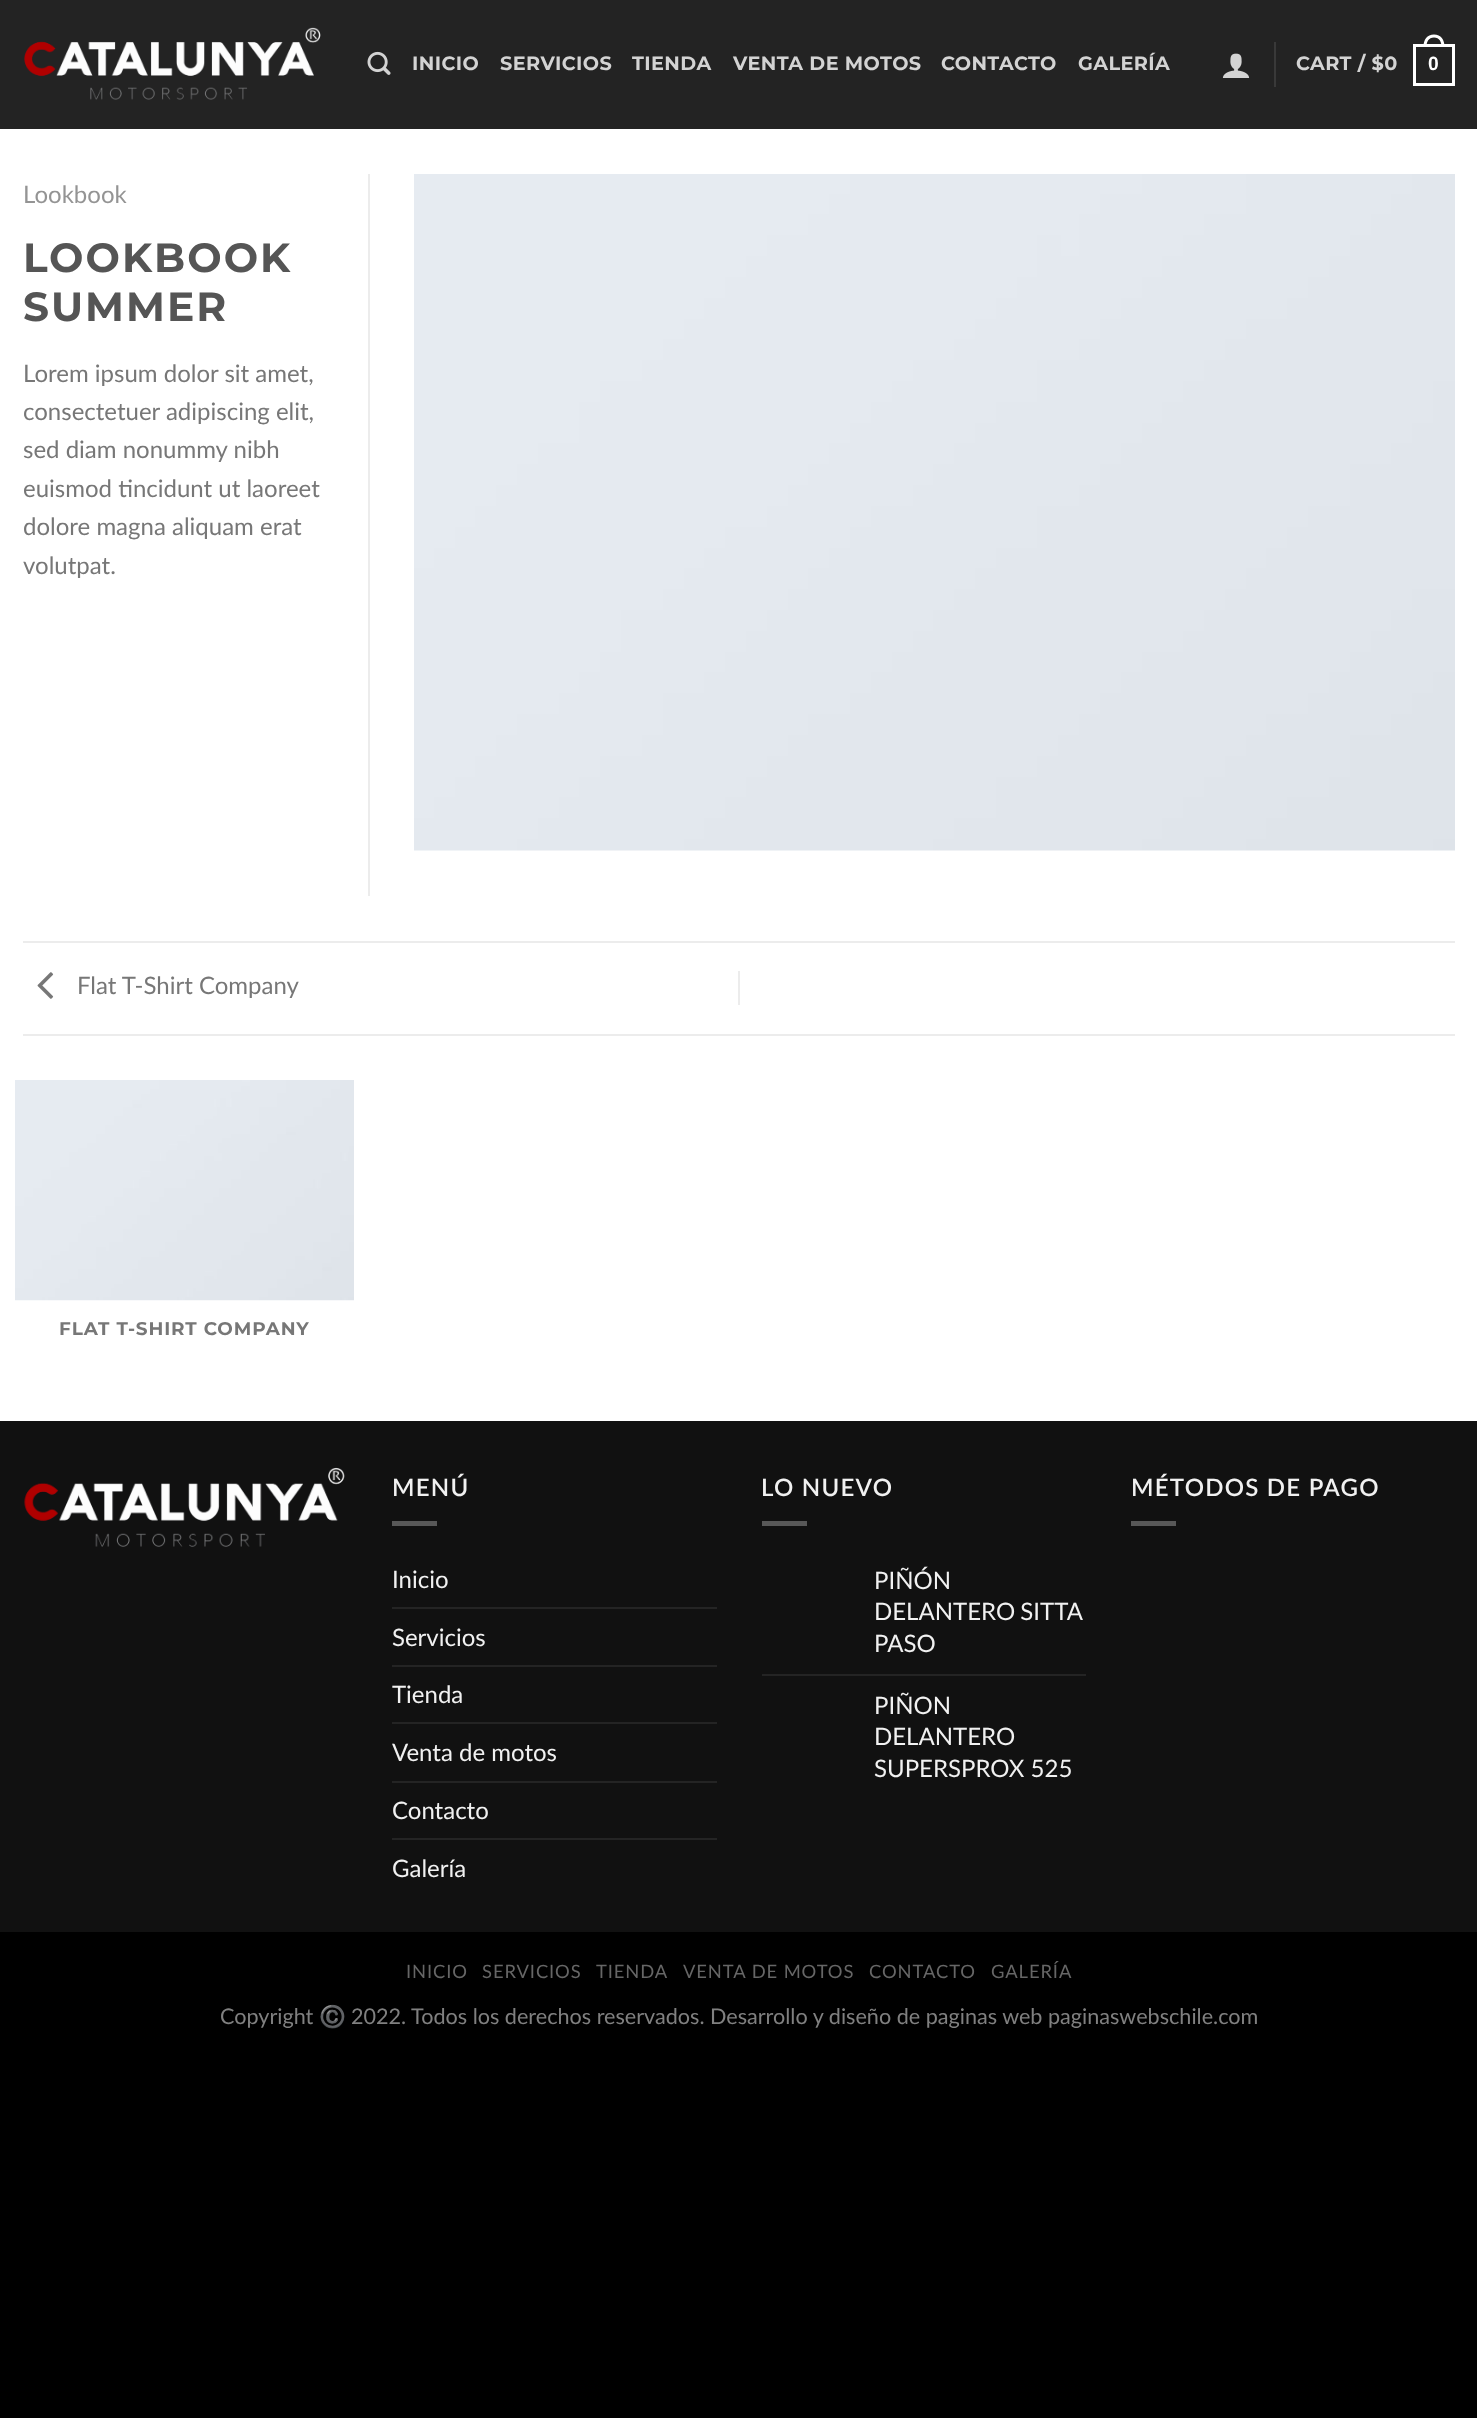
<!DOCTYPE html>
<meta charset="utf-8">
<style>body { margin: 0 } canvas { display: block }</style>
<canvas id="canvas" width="1477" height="2418"></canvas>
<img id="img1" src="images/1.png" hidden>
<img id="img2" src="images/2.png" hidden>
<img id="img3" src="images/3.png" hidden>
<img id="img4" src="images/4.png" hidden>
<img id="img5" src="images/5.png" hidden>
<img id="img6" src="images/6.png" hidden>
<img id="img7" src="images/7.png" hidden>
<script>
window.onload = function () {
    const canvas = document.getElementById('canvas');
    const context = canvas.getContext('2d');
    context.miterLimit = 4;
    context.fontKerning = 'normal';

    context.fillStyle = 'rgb(0, 0, 0)';
    context.fillRect(0, 0, 1477, 2418);
    context.fillStyle = 'rgb(255, 255, 255)';
    context.fillRect(0, 129, 1477, 1292);
    context.fillStyle = 'rgb(35, 35, 35)';
    context.fillRect(0, 0, 1477, 129);
    context.drawImage(document.getElementById('img1'), 24, 27, 297, 73);
    context.drawImage(document.getElementById('img2'), 367, 51, 24, 24);
    context.drawImage(document.getElementById('img3'), 1222, 53, 28, 25);
    context.fillStyle = 'rgb(57, 57, 57)';
    context.fillRect(1274, 42, 2, 45);
    context.strokeStyle = 'rgb(255, 255, 255)';
    context.lineWidth = 3;
    context.strokeRect(1414.5, 45.5, 39, 39);
    context.fillStyle = 'rgb(255, 255, 255)';
    context.beginPath();
    context.moveTo(1434, 34.5);
    context.bezierCurveTo(1441, 34.5, 1444.5, 40, 1444.5, 46.5);
    context.lineTo(1423.5, 46.5);
    context.bezierCurveTo(1423.5, 40, 1427, 34.5, 1434, 34.5);
    context.closePath();
    context.moveTo(1434, 37.5);
    context.bezierCurveTo(1439.5, 37.5, 1441.5, 42, 1441.5, 46.5);
    context.lineTo(1426.5, 46.5);
    context.bezierCurveTo(1426.5, 42, 1428.5, 37.5, 1434, 37.5);
    context.closePath();
    context.fill('evenodd');
    context.fillStyle = 'rgb(236, 236, 236)';
    context.fillRect(368, 174, 2, 722);
    context.drawImage(document.getElementById('img4'), 414, 174, 1041, 677);
    context.fillRect(23, 941, 1432, 2);
    context.fillRect(23, 1034, 1432, 2);
    context.drawImage(document.getElementById('img5'), 37, 972, 17, 27);
    context.fillRect(738, 971, 2, 34);
    context.drawImage(document.getElementById('img6'), 15, 1080, 339, 221);
    context.fillStyle = 'rgb(17, 17, 17)';
    context.fillRect(0, 1421, 1477, 511);
    context.drawImage(document.getElementById('img7'), 24, 1467, 321, 80);
    context.fillStyle = 'rgb(88, 88, 88)';
    context.fillRect(392, 1521, 45, 5);
    context.fillStyle = 'rgb(36, 36, 36)';
    context.fillRect(392, 1607, 325, 2);
    context.fillRect(392, 1665, 325, 2);
    context.fillRect(392, 1722, 325, 2);
    context.fillRect(392, 1781, 325, 2);
    context.fillRect(392, 1838, 325, 2);
    context.fillStyle = 'rgb(88, 88, 88)';
    context.fillRect(762, 1521, 45, 5);
    context.fillStyle = 'rgb(36, 36, 36)';
    context.fillRect(762, 1674, 324, 2);
    context.fillStyle = 'rgb(88, 88, 88)';
    context.fillRect(1131, 1521, 45, 5);
    context.letterSpacing = '0.4px';
    context.font = 'bold 19.25px Montserrat';
    context.fillStyle = 'rgb(211, 211, 211)';
    context.fillText('INICIO', 412, 70);
    context.fillText('SERVICIOS', 500, 70);
    context.fillText('TIENDA', 632, 70);
    context.fillText('VENTA DE MOTOS', 733, 70);
    context.fillText('CONTACTO', 941, 70);
    context.fillText('GALERÍA', 1078, 70);
    context.fillText('CART / $0', 1296, 70);
    context.font = 'bold 19.25px Liberation Sans';
    context.fillStyle = 'rgb(255, 255, 255)';
    context.fillText('0', 1428, 70);
    context.letterSpacing = '0px';
    context.font = '24px Lato';
    context.fillStyle = 'rgb(148, 148, 148)';
    context.fillText('Lookbook', 23, 203);
    context.letterSpacing = '2px';
    context.font = 'bold 40.75px Montserrat';
    context.fillStyle = 'rgb(85, 85, 85)';
    context.fillText('LOOKBOOK', 23, 272);
    context.fillText('SUMMER', 23, 321);
    context.letterSpacing = '0px';
    context.font = '24px Lato';
    context.fillStyle = 'rgb(119, 119, 119)';
    context.fillText('Lorem ipsum dolor sit amet,', 23, 382);
    context.fillText('consectetuer adipiscing elit,', 23, 420);
    context.fillText('sed diam nonummy nibh', 23, 458);
    context.fillText('euismod tincidunt ut laoreet', 23, 497);
    context.fillText('dolore magna aliquam erat', 23, 535);
    context.fillText('volutpat.', 23, 574);
    context.fillText('Flat T-Shirt Company', 77, 994);
    context.letterSpacing = '0.9px';
    context.font = 'bold 18.4px Montserrat';
    context.fillText('FLAT T-SHIRT COMPANY', 59, 1335);
    context.letterSpacing = '1.25px';
    context.font = '600 24px Lato';
    context.fillStyle = 'rgb(241, 241, 241)';
    context.fillText('MENÚ', 392, 1496);
    context.letterSpacing = '0px';
    context.font = '24px Lato';
    context.fillText('Inicio', 392, 1588);
    context.fillText('Servicios', 392, 1646);
    context.fillText('Tienda', 392, 1703);
    context.fillText('Venta de motos', 392, 1761);
    context.fillText('Contacto', 392, 1819);
    context.fillText('Galería', 392, 1877);
    context.letterSpacing = '1.25px';
    context.font = '600 24px Lato';
    context.fillText('LO NUEVO', 761, 1496);
    context.letterSpacing = '0px';
    context.font = '24px Lato';
    context.fillText('PIÑÓN', 874, 1589);
    context.wordSpacing = '-1px';
    context.fillText('DELANTERO SITTA', 874, 1620);
    context.wordSpacing = '0px';
    context.fillText('PASO', 874, 1652);
    context.fillText('PIÑON', 874, 1714);
    context.fillText('DELANTERO', 874, 1745);
    context.fillText('SUPERSPROX 525', 874, 1777);
    context.letterSpacing = '1.25px';
    context.font = '600 24px Lato';
    context.fillText('MÉTODOS DE PAGO', 1131, 1496);
    context.letterSpacing = '0.9px';
    context.font = '18.4px Lato';
    context.fillStyle = 'rgb(102, 102, 102)';
    context.fillText('INICIO', 406, 1978);
    context.fillText('SERVICIOS', 482, 1978);
    context.fillText('TIENDA', 596, 1978);
    context.fillText('VENTA DE MOTOS', 683, 1978);
    context.fillText('CONTACTO', 869, 1978);
    context.fillText('GALERÍA', 991, 1978);
    context.letterSpacing = '0px';
    context.font = '21.6px Lato';
    context.fillStyle = 'rgb(128, 128, 128)';
    context.fillText('Copyright', 220, 2024);
    context.font = '21.6px Noto Color Emoji';
    context.fillText('©️', 319, 2024);
    context.font = '21.6px Lato';
    context.fillText('2022. Todos los derechos reservados.', 351, 2024);
    context.fillText('Desarrollo y diseño de paginas web paginaswebschile.com', 710, 2024);
};
</script>
